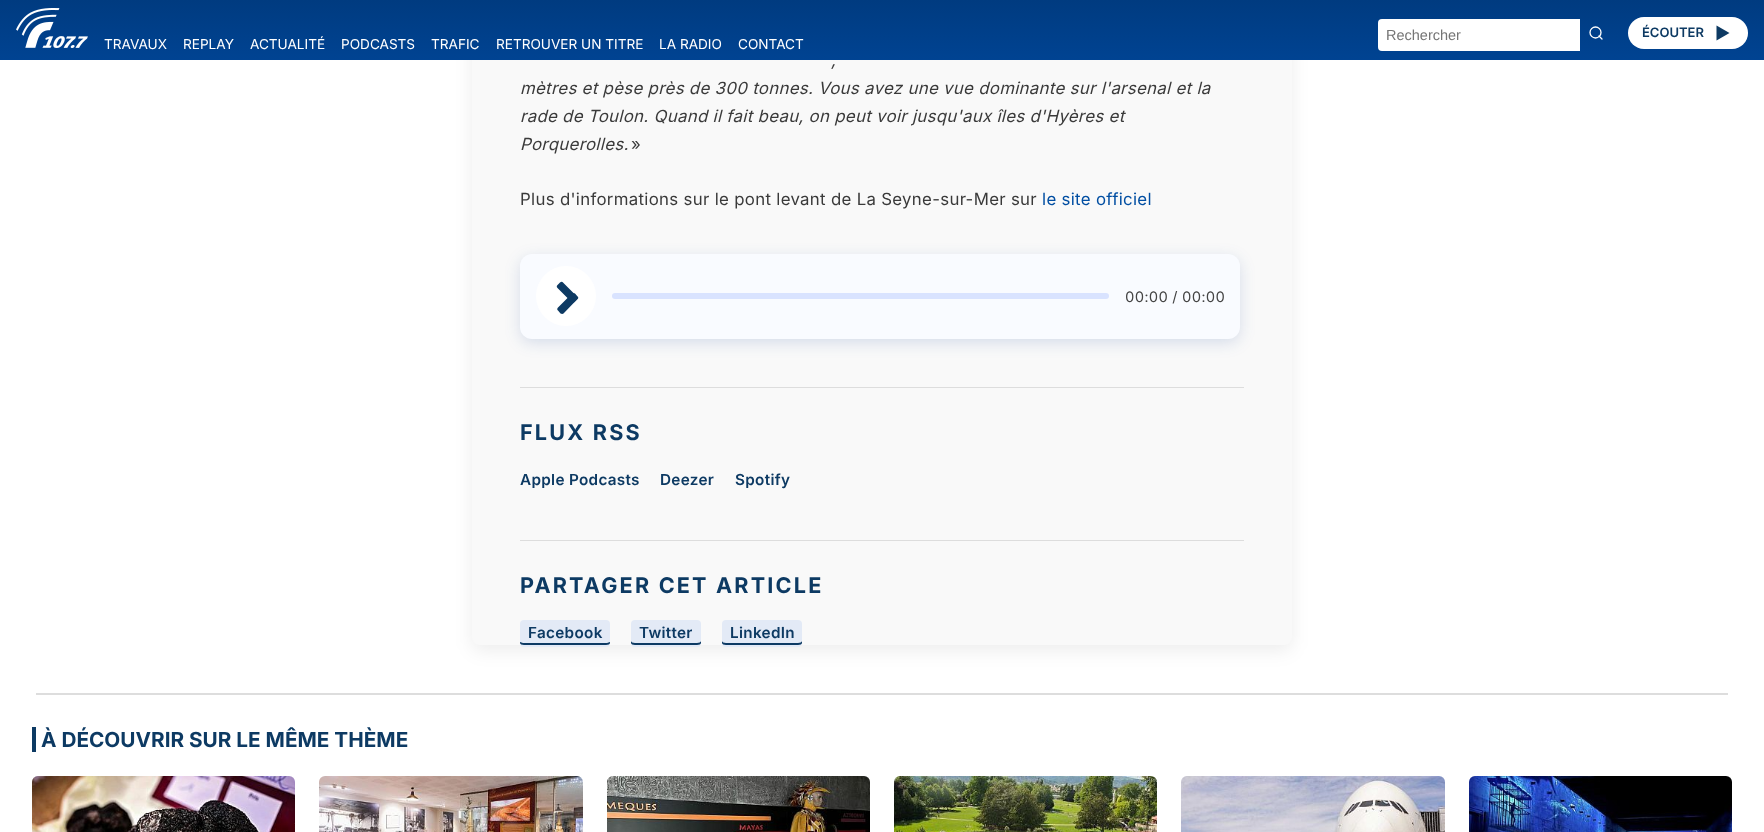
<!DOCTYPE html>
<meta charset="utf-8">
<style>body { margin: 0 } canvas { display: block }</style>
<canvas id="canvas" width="1764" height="832"></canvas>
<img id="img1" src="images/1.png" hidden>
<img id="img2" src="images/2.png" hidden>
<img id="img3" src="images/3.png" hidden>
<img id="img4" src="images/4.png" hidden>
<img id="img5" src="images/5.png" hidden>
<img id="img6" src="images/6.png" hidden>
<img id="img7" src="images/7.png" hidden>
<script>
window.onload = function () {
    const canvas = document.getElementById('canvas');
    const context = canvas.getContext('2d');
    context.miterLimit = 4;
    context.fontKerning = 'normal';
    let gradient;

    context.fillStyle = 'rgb(255, 255, 255)';
    context.fillRect(0, 0, 1764, 832);
    context.fillStyle = 'rgba(0, 0, 0, 0.07)';
    context.filter = 'blur(9px)';
    context.beginPath();
    context.roundRect(472, -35, 820, 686, 8);
    context.fill();
    context.filter = 'none';
    context.fillStyle = 'rgb(249, 249, 249)';
    context.beginPath();
    context.roundRect(472, -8, 820, 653, 8);
    context.fill();
    gradient = context.createLinearGradient(882, 0, 882, 60);
    gradient.addColorStop(0, 'rgb(0, 59, 128)');
    gradient.addColorStop(1, 'rgb(0, 67, 146)');
    context.fillStyle = gradient;
    context.fillRect(0, 0, 1764, 60);
    context.drawImage(document.getElementById('img1'), 16, 8, 72, 40);
    context.fillStyle = 'rgb(255, 255, 255)';
    context.beginPath();
    context.roundRect(1378, 19, 202, 32, [4, 0, 0, 4]);
    context.fill();
    context.beginPath();
    context.arc(1595.5, 32.5, 5.5, 0, 2 * Math.PI);
    context.strokeStyle = 'rgb(255, 255, 255)';
    context.lineWidth = 1.3;
    context.stroke();
    context.beginPath();
    context.moveTo(1602, 39);
    context.lineTo(1599, 36);
    context.lineCap = 'round';
    context.lineJoin = 'round';
    context.stroke();
    context.beginPath();
    context.roundRect(1628, 17, 120, 32, 16);
    context.fill();
    context.fillStyle = 'rgb(13, 58, 99)';
    context.beginPath();
    context.moveTo(1716.5, 25.5);
    context.lineTo(1729.5, 33);
    context.lineTo(1716.5, 40.5);
    context.closePath();
    context.fill();
    context.fillStyle = 'rgba(11, 61, 145, 0.15)';
    context.filter = 'blur(7.5px)';
    context.beginPath();
    context.roundRect(520, 258, 720, 85, 12);
    context.fill();
    context.filter = 'none';
    context.fillStyle = 'rgb(249, 251, 255)';
    context.beginPath();
    context.roundRect(520, 254, 720, 85, 12);
    context.fill();
    context.fillStyle = 'rgb(255, 255, 255)';
    context.beginPath();
    context.arc(566, 296, 30, 0, 2 * Math.PI);
    context.fill();
    context.fillStyle = 'rgb(13, 58, 99)';
    context.beginPath();
    context.moveTo(575, 293.5);
    context.lineTo(577.5, 296.5);
    context.bezierCurveTo(578.5, 297, 578.5, 298.5, 577.5, 299);
    context.lineTo(563.5, 313.5);
    context.bezierCurveTo(563, 314, 561.5, 314, 560.5, 313.5);
    context.lineTo(558, 310.5);
    context.bezierCurveTo(557, 310, 557, 308.5, 558, 307.5);
    context.lineTo(572, 293.5);
    context.bezierCurveTo(573, 293, 574, 293, 575, 293.5);
    context.closePath();
    context.fill();
    context.beginPath();
    context.moveTo(557.5, 285);
    context.lineTo(560, 282.5);
    context.bezierCurveTo(561, 281.5, 562.5, 281.5, 563, 282.5);
    context.lineTo(577, 296.5);
    context.bezierCurveTo(578, 297, 578, 298.5, 577, 299.5);
    context.lineTo(574.5, 302);
    context.bezierCurveTo(573.5, 303, 572.5, 303, 571.5, 302);
    context.lineTo(557.5, 288);
    context.bezierCurveTo(556.5, 287, 556.5, 286, 557.5, 285);
    context.closePath();
    context.fill();
    context.fillStyle = 'rgb(217, 227, 255)';
    context.beginPath();
    context.roundRect(612, 293, 497, 6, 3);
    context.fill();
    context.fillStyle = 'rgb(221, 221, 221)';
    context.fillRect(520, 387, 724, 1);
    context.fillRect(520, 540, 724, 1);
    context.fillStyle = 'rgb(227, 234, 246)';
    context.beginPath();
    context.roundRect(520, 620, 90, 27, 4);
    context.fill();
    context.fillStyle = 'rgb(13, 58, 99)';
    context.beginPath();
    context.moveTo(520, 641);
    context.lineTo(520, 643);
    context.bezierCurveTo(520, 644, 522, 645, 524, 645);
    context.lineTo(606, 645);
    context.bezierCurveTo(608, 645, 610, 644, 610, 643);
    context.lineTo(610, 641);
    context.lineTo(610, 642);
    context.lineTo(607, 643);
    context.lineTo(523, 643);
    context.lineTo(520, 642);
    context.closePath();
    context.fill();
    context.fillStyle = 'rgb(227, 234, 246)';
    context.beginPath();
    context.roundRect(631, 620, 70, 27, 4);
    context.fill();
    context.fillStyle = 'rgb(13, 58, 99)';
    context.beginPath();
    context.moveTo(631, 641);
    context.lineTo(631, 643);
    context.bezierCurveTo(631, 644, 633, 645, 635, 645);
    context.lineTo(697, 645);
    context.bezierCurveTo(699, 645, 701, 644, 701, 643);
    context.lineTo(701, 641);
    context.bezierCurveTo(701, 642, 699, 643, 697, 643);
    context.lineTo(635, 643);
    context.bezierCurveTo(633, 643, 631, 642, 631, 641);
    context.closePath();
    context.fill();
    context.fillStyle = 'rgb(227, 234, 246)';
    context.beginPath();
    context.roundRect(722, 620, 80, 27, 4);
    context.fill();
    context.fillStyle = 'rgb(13, 58, 99)';
    context.beginPath();
    context.moveTo(722, 641);
    context.lineTo(722, 643);
    context.bezierCurveTo(722, 644, 724, 645, 726, 645);
    context.lineTo(798, 645);
    context.bezierCurveTo(800, 645, 802, 644, 802, 643);
    context.lineTo(802, 641);
    context.bezierCurveTo(802, 642, 800, 643, 798, 643);
    context.lineTo(726, 643);
    context.bezierCurveTo(724, 643, 722, 642, 722, 641);
    context.closePath();
    context.fill();
    context.fillStyle = 'rgb(221, 221, 221)';
    context.fillRect(36, 693, 1692, 2);
    context.fillStyle = 'rgb(13, 58, 99)';
    context.fillRect(32, 727, 4, 25);
    context.drawImage(document.getElementById('img2'), 32, 776, 263, 56);
    context.drawImage(document.getElementById('img3'), 319, 776, 264, 56);
    context.drawImage(document.getElementById('img4'), 607, 776, 263, 56);
    context.drawImage(document.getElementById('img5'), 894, 776, 263, 56);
    context.drawImage(document.getElementById('img6'), 1181, 776, 264, 56);
    context.drawImage(document.getElementById('img7'), 1469, 776, 263, 56);
    context.font = '13.6px Inter';
    context.fillStyle = 'rgb(255, 255, 255)';
    context.fillText('TRAVAUX', 104, 49);
    context.fillText('REPLAY', 183, 49);
    context.fillText('ACTUALITÉ', 250, 49);
    context.fillText('PODCASTS', 341, 49);
    context.fillText('TRAFIC', 431, 49);
    context.fillText('RETROUVER UN TITRE', 496, 49);
    context.fillText('LA RADIO', 659, 49);
    context.fillText('CONTACT', 738, 49);
    context.font = '14.5px Liberation Sans';
    context.fillStyle = 'rgb(117, 117, 117)';
    context.fillText('Rechercher', 1386, 40);
    context.font = '600 13px Inter';
    context.fillStyle = 'rgb(13, 58, 99)';
    context.fillText('ÉCOUTER', 1642, 37);
    context.letterSpacing = '0.32px';
    context.font = 'italic 16.8px Inter';
    context.fillStyle = 'rgb(58, 58, 58)';
    context.fillText(',', 831, 66);
    context.fillText('mètres et pèse près de 300 tonnes. Vous avez une vue dominante sur l\'arsenal et la', 520, 94);
    context.fillText('rade de Toulon. Quand il fait beau, on peut voir jusqu\'aux îles d\'Hyères et', 520, 122);
    context.fillText('Porquerolles.', 520, 150);
    context.font = '16.8px Inter';
    context.fillText('»', 631, 150);
    context.fillText('Plus d\'informations sur le pont levant de La Seyne-sur-Mer sur', 520, 205);
    context.fillStyle = 'rgb(1, 78, 162)';
    context.fillText('le site officiel', 1042, 205);
    context.font = '14.5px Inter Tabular';
    context.fillStyle = 'rgb(68, 68, 68)';
    context.fillText('00:00 / 00:00', 1125, 302);
    context.letterSpacing = '2.2px';
    context.font = 'bold 21.6px Inter';
    context.fillStyle = 'rgb(13, 58, 99)';
    context.fillText('FLUX RSS', 520, 440);
    context.letterSpacing = '0.32px';
    context.font = '600 15.25px Inter';
    context.fillText('Apple Podcasts', 520, 485);
    context.fillText('Deezer', 660, 485);
    context.fillText('Spotify', 735, 485);
    context.letterSpacing = '2.2px';
    context.font = 'bold 21.6px Inter';
    context.fillText('PARTAGER CET ARTICLE', 520, 593);
    context.letterSpacing = '0.32px';
    context.font = '600 15.25px Inter';
    context.fillText('Facebook', 528, 638);
    context.fillText('Twitter', 639, 638);
    context.fillText('LinkedIn', 730, 638);
    context.letterSpacing = '0px';
    context.font = 'bold 20.75px Inter';
    context.fillText('À DÉCOUVRIR SUR LE MÊME THÈME', 41, 747);
};
</script>
